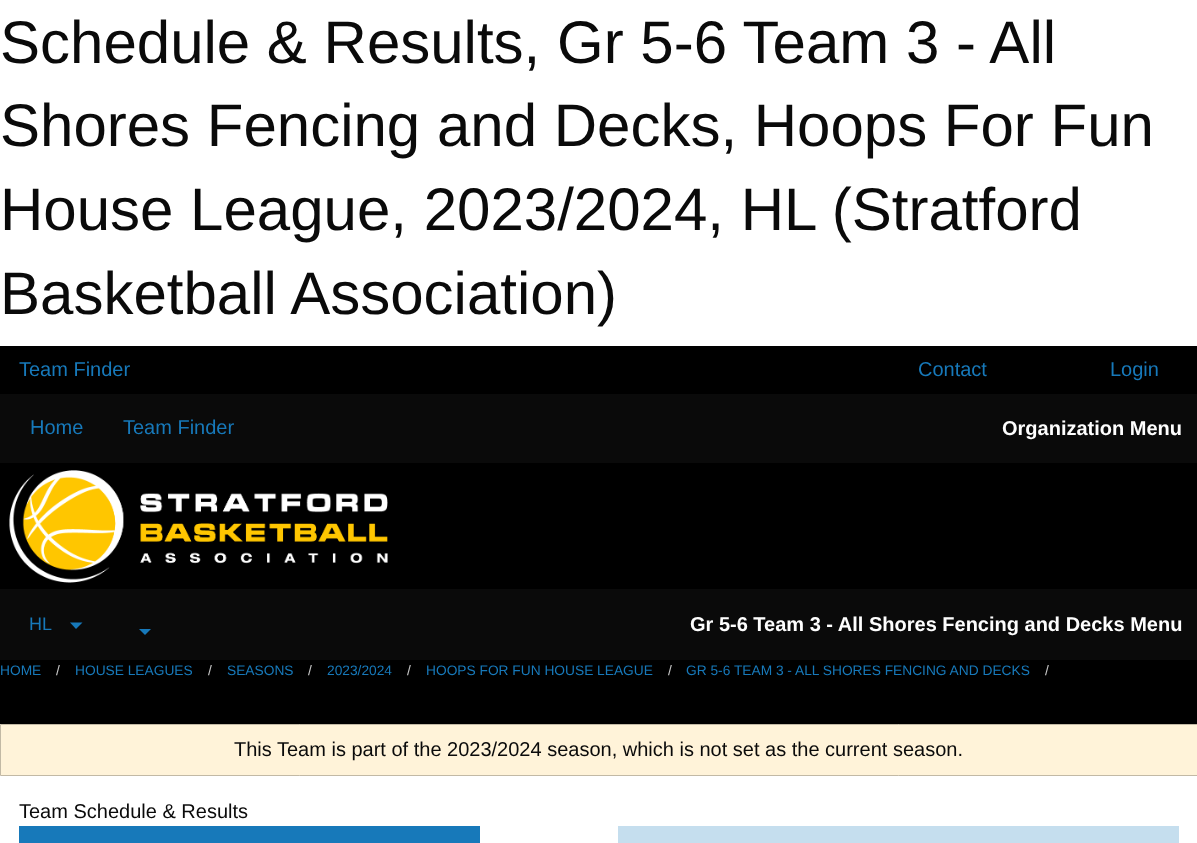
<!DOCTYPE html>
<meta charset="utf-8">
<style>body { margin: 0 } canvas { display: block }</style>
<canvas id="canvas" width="1197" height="843"></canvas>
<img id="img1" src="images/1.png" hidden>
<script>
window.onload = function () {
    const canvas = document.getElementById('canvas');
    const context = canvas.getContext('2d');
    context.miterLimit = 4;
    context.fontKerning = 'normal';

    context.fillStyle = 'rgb(255, 255, 255)';
    context.fillRect(0, 0, 1197, 843);
    context.fillStyle = 'rgb(0, 0, 0)';
    context.fillRect(0, 346, 1197, 378);
    context.fillStyle = 'rgb(10, 10, 10)';
    context.fillRect(0, 394, 1197, 69);
    context.drawImage(document.getElementById('img1'), 9, 470, 379, 113);
    context.fillRect(0, 589, 1197, 71);
    context.fillStyle = 'rgb(23, 121, 186)';
    context.beginPath();
    context.moveTo(70, 622.5);
    context.lineTo(82.5, 622.5);
    context.lineTo(76, 629);
    context.closePath();
    context.fill();
    context.beginPath();
    context.moveTo(139, 629);
    context.lineTo(151, 629);
    context.lineTo(145, 635);
    context.closePath();
    context.fill();
    context.fillStyle = 'rgb(255, 243, 217)';
    context.beginPath();
    context.rect(0.5, 724.5, 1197, 51);
    context.fill();
    context.strokeStyle = 'rgb(194, 185, 165)';
    context.stroke();
    context.fillStyle = 'rgb(23, 121, 186)';
    context.fillRect(19, 826, 461, 17);
    context.fillStyle = 'rgb(197, 222, 238)';
    context.fillRect(618, 826, 561, 17);
    context.font = '60px Liberation Sans';
    context.fillStyle = 'rgb(10, 10, 10)';
    context.fillText('Schedule & Results, Gr 5-6 Team 3 - All', 0, 63);
    context.fillText('Shores Fencing and Decks, Hoops For Fun', 0, 146);
    context.fillText('House League, 2023/2024, HL (Stratford', 0, 230);
    context.fillText('Basketball Association)', 0, 314);
    context.font = '20px Liberation Sans';
    context.fillStyle = 'rgb(23, 121, 186)';
    context.fillText('Team Finder', 19, 376);
    context.fillText('Contact', 918, 376);
    context.fillText('Login', 1110, 376);
    context.fillText('Home', 30, 434);
    context.fillText('Team Finder', 123, 434);
    context.font = 'bold 20px Liberation Sans';
    context.fillStyle = 'rgb(254, 254, 254)';
    context.fillText('Organization Menu', 1002, 435);
    context.font = '18px Liberation Sans';
    context.fillStyle = 'rgb(23, 121, 186)';
    context.fillText('HL', 29, 630);
    context.font = 'bold 20px Liberation Sans';
    context.fillStyle = 'rgb(254, 254, 254)';
    context.fillText('Gr 5-6 Team 3 - All Shores Fencing and Decks Menu', 690, 631);
    context.font = '13.75px Liberation Sans';
    context.fillStyle = 'rgb(23, 121, 186)';
    context.fillText('HOME', 0, 675);
    context.fillStyle = 'rgb(202, 202, 202)';
    context.fillText('/', 56, 675);
    context.fillStyle = 'rgb(23, 121, 186)';
    context.fillText('HOUSE LEAGUES', 75, 675);
    context.fillStyle = 'rgb(202, 202, 202)';
    context.fillText('/', 208, 675);
    context.fillStyle = 'rgb(23, 121, 186)';
    context.fillText('SEASONS', 227, 675);
    context.fillStyle = 'rgb(202, 202, 202)';
    context.fillText('/', 308, 675);
    context.fillStyle = 'rgb(23, 121, 186)';
    context.fillText('2023/2024', 327, 675);
    context.fillStyle = 'rgb(202, 202, 202)';
    context.fillText('/', 407, 675);
    context.fillStyle = 'rgb(23, 121, 186)';
    context.fillText('HOOPS FOR FUN HOUSE LEAGUE', 426, 675);
    context.fillStyle = 'rgb(202, 202, 202)';
    context.fillText('/', 668, 675);
    context.fillStyle = 'rgb(23, 121, 186)';
    context.fillText('GR 5-6 TEAM 3 - ALL SHORES FENCING AND DECKS', 686, 675);
    context.fillStyle = 'rgb(202, 202, 202)';
    context.fillText('/', 1045, 675);
    context.font = '20px Liberation Sans';
    context.fillStyle = 'rgb(10, 10, 10)';
    context.fillText('This Team is part of the 2023/2024 season, which is not set as the current season.', 234, 756);
    context.fillText('Team Schedule & Results', 19, 818);
};
</script>
